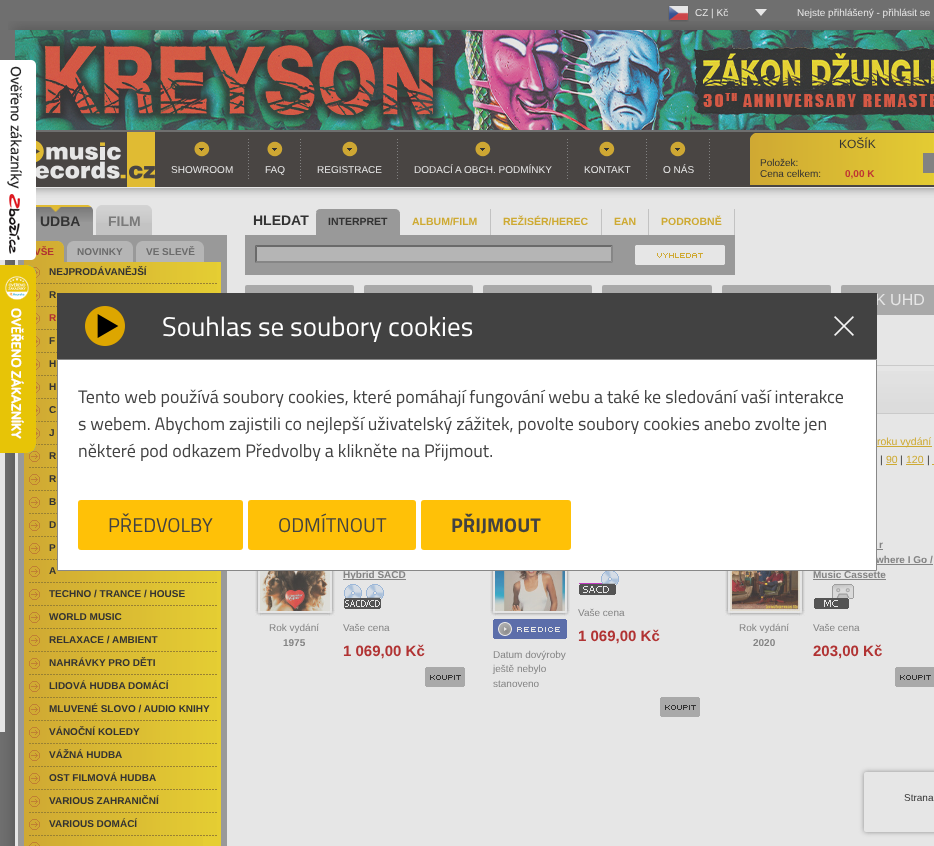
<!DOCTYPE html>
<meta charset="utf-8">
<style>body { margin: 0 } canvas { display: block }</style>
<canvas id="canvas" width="934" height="846"></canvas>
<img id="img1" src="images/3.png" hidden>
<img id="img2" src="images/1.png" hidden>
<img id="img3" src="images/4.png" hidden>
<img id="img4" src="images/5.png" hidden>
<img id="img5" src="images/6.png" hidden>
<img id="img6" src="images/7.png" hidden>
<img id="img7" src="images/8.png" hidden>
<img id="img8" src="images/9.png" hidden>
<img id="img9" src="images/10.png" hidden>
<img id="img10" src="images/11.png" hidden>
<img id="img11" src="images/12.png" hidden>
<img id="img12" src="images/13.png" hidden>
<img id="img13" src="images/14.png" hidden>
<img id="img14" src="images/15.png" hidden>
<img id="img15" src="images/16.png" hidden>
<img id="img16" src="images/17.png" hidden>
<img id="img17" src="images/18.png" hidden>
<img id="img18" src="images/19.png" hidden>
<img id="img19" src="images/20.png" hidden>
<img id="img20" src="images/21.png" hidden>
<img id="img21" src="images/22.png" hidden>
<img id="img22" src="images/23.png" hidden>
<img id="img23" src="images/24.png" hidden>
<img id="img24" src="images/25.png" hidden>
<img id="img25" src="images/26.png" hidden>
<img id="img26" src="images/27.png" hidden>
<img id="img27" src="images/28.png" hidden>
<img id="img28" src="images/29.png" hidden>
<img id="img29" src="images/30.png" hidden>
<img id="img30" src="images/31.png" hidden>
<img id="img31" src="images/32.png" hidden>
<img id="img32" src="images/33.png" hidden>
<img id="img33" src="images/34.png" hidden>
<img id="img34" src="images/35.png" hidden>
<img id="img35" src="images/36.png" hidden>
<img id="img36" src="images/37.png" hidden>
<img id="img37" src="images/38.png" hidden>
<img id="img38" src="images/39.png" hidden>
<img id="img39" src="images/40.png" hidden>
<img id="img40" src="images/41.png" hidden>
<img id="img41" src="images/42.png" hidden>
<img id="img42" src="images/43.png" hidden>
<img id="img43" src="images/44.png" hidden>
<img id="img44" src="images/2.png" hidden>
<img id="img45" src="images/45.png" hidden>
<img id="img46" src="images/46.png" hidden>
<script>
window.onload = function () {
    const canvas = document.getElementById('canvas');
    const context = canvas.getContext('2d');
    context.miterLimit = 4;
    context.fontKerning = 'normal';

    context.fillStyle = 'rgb(111, 111, 111)';
    context.fillRect(0, 0, 934, 846);
    context.drawImage(document.getElementById('img1'), 8, 21, 926, 9);
    context.drawImage(document.getElementById('img2'), 668, 5, 21, 17);
    context.fillStyle = 'rgb(230, 230, 230)';
    context.beginPath();
    context.moveTo(755, 9);
    context.lineTo(767, 9);
    context.lineTo(761, 16);
    context.closePath();
    context.fill();
    context.drawImage(document.getElementById('img3'), 15, 30, 919, 100);
    context.fillRect(15, 205, 919, 641);
    context.drawImage(document.getElementById('img4'), 0, 260, 15, 586);
    context.fillStyle = 'rgb(73, 69, 67)';
    context.fillRect(155, 132, 779, 55);
    context.drawImage(document.getElementById('img5'), 36, 187, 898, 18);
    context.drawImage(document.getElementById('img6'), 36, 132, 119, 55);
    context.drawImage(document.getElementById('img7'), 248, 139, 1, 40);
    context.drawImage(document.getElementById('img8'), 194, 141, 16, 16);
    context.drawImage(document.getElementById('img7'), 300, 139, 1, 40);
    context.drawImage(document.getElementById('img8'), 267, 141, 16, 16);
    context.drawImage(document.getElementById('img7'), 397, 139, 1, 40);
    context.drawImage(document.getElementById('img8'), 342, 141, 16, 16);
    context.drawImage(document.getElementById('img7'), 567, 139, 1, 40);
    context.drawImage(document.getElementById('img8'), 475, 141, 16, 16);
    context.drawImage(document.getElementById('img7'), 646, 139, 1, 40);
    context.drawImage(document.getElementById('img8'), 599, 141, 16, 16);
    context.drawImage(document.getElementById('img7'), 709, 139, 1, 40);
    context.drawImage(document.getElementById('img8'), 670, 141, 16, 16);
    context.fillStyle = 'rgb(230, 206, 51)';
    context.fillRect(933, 133, 1, 52);
    context.drawImage(document.getElementById('img9'), 750, 133, 183, 52);
    context.fillStyle = 'rgb(130, 130, 130)';
    context.fillRect(923, 153, 11, 20);
    context.fillStyle = 'rgb(230, 230, 230)';
    context.fillRect(0, 260, 5, 472);
    context.fillStyle = 'rgb(153, 153, 153)';
    context.fillRect(18, 235, 209, 611);
    context.fillRect(36, 222, 57, 13);
    context.drawImage(document.getElementById('img10'), 36, 205, 57, 17);
    context.drawImage(document.getElementById('img11'), 88, 205, 5, 5);
    context.fillStyle = 'rgb(195, 195, 195)';
    context.fillRect(96, 223, 56, 12);
    context.drawImage(document.getElementById('img12'), 96, 205, 56, 18);
    context.drawImage(document.getElementById('img13'), 147, 205, 5, 5);
    context.drawImage(document.getElementById('img14'), 24, 241, 40, 21);
    context.drawImage(document.getElementById('img15'), 58, 241, 6, 6);
    context.drawImage(document.getElementById('img16'), 67, 241, 66, 21);
    context.drawImage(document.getElementById('img17'), 127, 241, 6, 6);
    context.drawImage(document.getElementById('img18'), 136, 241, 68, 21);
    context.drawImage(document.getElementById('img17'), 198, 241, 6, 6);
    context.fillStyle = 'rgb(230, 206, 51)';
    context.fillRect(217, 262, 4, 31);
    context.drawImage(document.getElementById('img19'), 24, 262, 193, 23);
    context.drawImage(document.getElementById('img20'), 33, 267, 7, 11);
    context.drawImage(document.getElementById('img21'), 36, 285, 181, 23);
    context.drawImage(document.getElementById('img22'), 36, 290, 4, 11);
    context.drawImage(document.getElementById('img23'), 36, 308, 21, 23);
    context.drawImage(document.getElementById('img22'), 36, 313, 4, 11);
    context.drawImage(document.getElementById('img23'), 36, 331, 21, 23);
    context.drawImage(document.getElementById('img22'), 36, 336, 4, 11);
    context.drawImage(document.getElementById('img23'), 36, 354, 21, 23);
    context.drawImage(document.getElementById('img22'), 36, 359, 4, 11);
    context.drawImage(document.getElementById('img23'), 36, 377, 21, 23);
    context.drawImage(document.getElementById('img22'), 36, 382, 4, 11);
    context.drawImage(document.getElementById('img23'), 36, 400, 21, 23);
    context.drawImage(document.getElementById('img22'), 36, 405, 4, 11);
    context.drawImage(document.getElementById('img24'), 35, 423, 22, 23);
    context.drawImage(document.getElementById('img22'), 36, 428, 4, 11);
    context.drawImage(document.getElementById('img25'), 24, 446, 33, 23);
    context.drawImage(document.getElementById('img26'), 29, 451, 11, 11);
    context.drawImage(document.getElementById('img25'), 24, 469, 33, 23);
    context.drawImage(document.getElementById('img26'), 29, 474, 11, 11);
    context.drawImage(document.getElementById('img25'), 24, 492, 33, 23);
    context.drawImage(document.getElementById('img26'), 29, 497, 11, 11);
    context.drawImage(document.getElementById('img25'), 24, 515, 33, 23);
    context.drawImage(document.getElementById('img26'), 29, 520, 11, 11);
    context.drawImage(document.getElementById('img25'), 24, 538, 33, 23);
    context.drawImage(document.getElementById('img26'), 29, 543, 11, 11);
    context.fillRect(217, 571, 4, 266);
    context.drawImage(document.getElementById('img19'), 24, 561, 193, 23);
    context.drawImage(document.getElementById('img26'), 29, 566, 11, 11);
    context.drawImage(document.getElementById('img19'), 24, 584, 193, 23);
    context.drawImage(document.getElementById('img26'), 29, 589, 11, 11);
    context.drawImage(document.getElementById('img19'), 24, 607, 193, 23);
    context.drawImage(document.getElementById('img26'), 29, 612, 11, 11);
    context.drawImage(document.getElementById('img19'), 24, 630, 193, 23);
    context.drawImage(document.getElementById('img26'), 29, 635, 11, 11);
    context.drawImage(document.getElementById('img19'), 24, 653, 193, 23);
    context.drawImage(document.getElementById('img26'), 29, 658, 11, 11);
    context.drawImage(document.getElementById('img19'), 24, 676, 193, 23);
    context.drawImage(document.getElementById('img26'), 29, 681, 11, 11);
    context.drawImage(document.getElementById('img19'), 24, 699, 193, 23);
    context.drawImage(document.getElementById('img26'), 29, 704, 11, 11);
    context.drawImage(document.getElementById('img19'), 24, 722, 193, 23);
    context.drawImage(document.getElementById('img26'), 29, 727, 11, 11);
    context.drawImage(document.getElementById('img19'), 24, 745, 193, 23);
    context.drawImage(document.getElementById('img26'), 29, 750, 11, 11);
    context.drawImage(document.getElementById('img19'), 24, 768, 193, 23);
    context.drawImage(document.getElementById('img26'), 29, 773, 11, 11);
    context.drawImage(document.getElementById('img19'), 24, 791, 193, 23);
    context.drawImage(document.getElementById('img26'), 29, 796, 11, 11);
    context.drawImage(document.getElementById('img19'), 24, 814, 193, 23);
    context.drawImage(document.getElementById('img26'), 29, 819, 11, 11);
    context.fillRect(203, 837, 18, 9);
    context.drawImage(document.getElementById('img27'), 24, 837, 179, 9);
    context.drawImage(document.getElementById('img28'), 29, 842, 11, 4);
    context.fillStyle = 'rgb(153, 153, 153)';
    context.beginPath();
    context.roundRect(316, 209, 84, 26, [5, 5, 0, 0]);
    context.fill();
    context.drawImage(document.getElementById('img29'), 396, 209, 4, 4);
    context.drawImage(document.getElementById('img30'), 316, 209, 4, 3);
    context.fillStyle = 'rgb(194, 194, 194)';
    context.fillRect(490, 209, 1, 26);
    context.fillRect(601, 209, 1, 26);
    context.fillRect(648, 209, 1, 26);
    context.fillRect(734, 209, 1, 26);
    context.fillStyle = 'rgb(153, 153, 153)';
    context.fillRect(245, 235, 490, 40);
    context.fillStyle = 'rgb(181, 181, 181)';
    context.fillRect(255, 245, 358, 18);
    context.fillStyle = 'rgb(106, 106, 106)';
    context.beginPath();
    context.moveTo(255, 245);
    context.lineTo(613, 245);
    context.lineTo(611, 247);
    context.lineTo(257, 247);
    context.closePath();
    context.fill();
    context.fillStyle = 'rgb(134, 134, 134)';
    context.beginPath();
    context.moveTo(613, 245);
    context.lineTo(613, 263);
    context.lineTo(611, 261);
    context.lineTo(611, 247);
    context.closePath();
    context.fill();
    context.beginPath();
    context.moveTo(613, 263);
    context.lineTo(255, 263);
    context.lineTo(257, 261);
    context.lineTo(611, 261);
    context.closePath();
    context.fill();
    context.fillStyle = 'rgb(106, 106, 106)';
    context.beginPath();
    context.moveTo(255, 263);
    context.lineTo(255, 245);
    context.lineTo(257, 247);
    context.lineTo(257, 261);
    context.closePath();
    context.fill();
    context.fillStyle = 'rgb(181, 181, 181)';
    context.fillRect(635, 245, 90, 20);
    context.drawImage(document.getElementById('img31'), 635, 245, 90, 20);
    context.fillStyle = 'rgb(169, 169, 169)';
    context.beginPath();
    context.roundRect(245, 285, 109, 30, 2);
    context.fill();
    context.beginPath();
    context.roundRect(364, 285, 109, 30, 2);
    context.fill();
    context.beginPath();
    context.roundRect(483, 285, 109, 30, 2);
    context.fill();
    context.beginPath();
    context.roundRect(602, 285, 110, 30, 2);
    context.fill();
    context.beginPath();
    context.roundRect(722, 285, 109, 30, 2);
    context.fill();
    context.beginPath();
    context.roundRect(841, 285, 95, 30, 2);
    context.fill();
    context.drawImage(document.getElementById('img32'), 877, 371, 57, 42);
    context.strokeStyle = 'rgb(202, 202, 202)';
    context.strokeRect(245.5, 365.5, 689, 48);
    context.fillStyle = 'rgb(206, 170, 51)';
    context.fillRect(877, 446, 55, 1);
    context.fillRect(886, 464, 11, 1);
    context.fillRect(906, 464, 18, 1);
    context.fillRect(932, 464, 2, 1);
    context.drawImage(document.getElementById('img33'), 255, 571, 80, 45);
    context.drawImage(document.getElementById('img34'), 260, 571, 70, 40);
    context.fillStyle = 'rgb(132, 132, 132)';
    context.fillRect(343, 579, 63, 1);
    context.drawImage(document.getElementById('img35'), 344, 584, 40, 25);
    context.drawImage(document.getElementById('img36'), 425, 667, 40, 20);
    context.drawImage(document.getElementById('img37'), 579, 571, 40, 24);
    context.drawImage(document.getElementById('img33'), 490, 571, 80, 45);
    context.drawImage(document.getElementById('img38'), 495, 571, 70, 40);
    context.drawImage(document.getElementById('img39'), 493, 619, 74, 20);
    context.drawImage(document.getElementById('img36'), 660, 697, 40, 20);
    context.drawImage(document.getElementById('img33'), 725, 571, 80, 45);
    context.drawImage(document.getElementById('img40'), 730, 571, 70, 40);
    context.fillRect(877, 549, 6, 1);
    context.fillRect(877, 564, 56, 1);
    context.fillRect(813, 579, 73, 1);
    context.drawImage(document.getElementById('img41'), 814, 584, 40, 25);
    context.drawImage(document.getElementById('img42'), 895, 667, 39, 20);
    context.save();
    context.beginPath();
    context.moveTo(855, 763);
    context.lineTo(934, 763);
    context.lineTo(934, 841);
    context.lineTo(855, 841);
    context.closePath();
    context.moveTo(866, 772);
    context.lineTo(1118, 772);
    context.bezierCurveTo(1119, 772, 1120, 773, 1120, 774);
    context.lineTo(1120, 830);
    context.bezierCurveTo(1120, 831, 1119, 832, 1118, 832);
    context.lineTo(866, 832);
    context.bezierCurveTo(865, 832, 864, 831, 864, 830);
    context.lineTo(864, 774);
    context.bezierCurveTo(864, 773, 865, 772, 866, 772);
    context.closePath();
    context.clip('evenodd');
    context.fillStyle = 'rgb(141, 141, 141)';
    context.filter = 'blur(2.5px)';
    context.beginPath();
    context.roundRect(864, 772, 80, 60, 2);
    context.fill();
    context.filter = 'none';
    context.restore();
    context.drawImage(document.getElementById('img43'), 0, 265, 36, 188);
    context.font = '10px Liberation Sans';
    context.fillStyle = 'rgb(230, 230, 230)';
    context.fillText('CZ | Kč', 695, 16);
    context.fillText('Nejste přihlášený - přihlásit se', 797, 16);
    context.fillText('SHOWROOM', 171, 173);
    context.fillText('FAQ', 265, 173);
    context.fillText('REGISTRACE', 317, 173);
    context.fillText('DODACÍ A OBCH. PODMÍNKY', 414, 173);
    context.fillText('KONTAKT', 584, 173);
    context.fillText('O NÁS', 663, 173);
    context.font = '12px Liberation Sans';
    context.fillStyle = 'rgb(51, 51, 51)';
    context.fillText('KOŠÍK', 839, 148);
    context.font = '10px Liberation Sans';
    context.fillText('Položek:', 760, 166);
    context.fillText('Cena celkem:', 760, 177);
    context.font = 'bold 10px Liberation Sans';
    context.fillStyle = 'rgb(191, 51, 51)';
    context.fillText('0,00 K', 845, 177);
    context.font = 'bold 14px Liberation Sans';
    context.fillStyle = 'rgb(51, 51, 51)';
    context.fillText('UDBA', 40, 226);
    context.fillStyle = 'rgb(122, 122, 122)';
    context.fillText('FILM', 108, 226);
    context.font = 'bold 10px Liberation Sans';
    context.fillStyle = 'rgb(177, 51, 51)';
    context.fillText('VŠE', 34, 255);
    context.drawImage(document.getElementById('img44'), 0, 60, 36, 200);
    context.fillStyle = 'rgb(107, 107, 107)';
    context.fillText('NOVINKY', 77, 255);
    context.fillText('VE SLEVĚ', 146, 255);
    context.fillStyle = 'rgb(51, 51, 51)';
    context.fillText('NEJPRODÁVANĚJŠÍ', 49, 275);
    context.fillText('R', 49, 298);
    context.fillStyle = 'rgb(177, 51, 51)';
    context.fillText('R', 49, 321);
    context.fillStyle = 'rgb(51, 51, 51)';
    context.fillText('F', 49, 344);
    context.fillText('H', 49, 367);
    context.fillText('H', 49, 390);
    context.fillText('C', 49, 413);
    context.fillText('J', 49, 436);
    context.fillText('R', 49, 459);
    context.fillText('R', 49, 482);
    context.fillText('B', 49, 505);
    context.fillText('D', 49, 528);
    context.fillText('P', 49, 551);
    context.fillText('A', 49, 574);
    context.fillText('TECHNO / TRANCE / HOUSE', 49, 597);
    context.fillText('WORLD MUSIC', 49, 620);
    context.fillText('RELAXACE / AMBIENT', 49, 643);
    context.fillText('NAHRÁVKY PRO DĚTI', 49, 666);
    context.fillText('LIDOVÁ HUDBA DOMÁCÍ', 49, 689);
    context.fillText('MLUVENÉ SLOVO / AUDIO KNIHY', 49, 712);
    context.fillText('VÁNOČNÍ KOLEDY', 49, 735);
    context.fillText('VÁŽNÁ HUDBA', 49, 758);
    context.fillText('OST FILMOVÁ HUDBA', 49, 781);
    context.fillText('VARIOUS ZAHRANIČNÍ', 49, 804);
    context.fillText('VARIOUS DOMÁCÍ', 49, 827);
    context.font = 'bold 14px Liberation Sans';
    context.fillText('HLEDAT', 253, 225);
    context.font = 'bold 10.5px Liberation Sans';
    context.fillText('INTERPRET', 328, 225);
    context.fillStyle = 'rgb(206, 170, 51)';
    context.fillText('ALBUM/FILM', 412, 225);
    context.fillText('REŽISÉR/HEREC', 503, 225);
    context.fillText('EAN', 614, 225);
    context.fillText('PODROBNĚ', 661, 225);
    context.font = '16px Liberation Sans';
    context.fillStyle = 'rgb(230, 230, 230)';
    context.fillText('K UHD', 875, 305);
    context.font = '10.5px Liberation Sans';
    context.fillStyle = 'rgb(206, 170, 51)';
    context.fillText('roku vydání', 877, 445);
    context.fillStyle = 'rgb(51, 51, 51)';
    context.fillText('|', 880, 463);
    context.fillStyle = 'rgb(206, 170, 51)';
    context.fillText('90', 886, 463);
    context.fillStyle = 'rgb(51, 51, 51)';
    context.fillText('|', 900, 463);
    context.fillStyle = 'rgb(206, 170, 51)';
    context.fillText('120', 906, 463);
    context.fillStyle = 'rgb(51, 51, 51)';
    context.fillText('|', 927, 463);
    context.font = '10px Liberation Sans';
    context.fillStyle = 'rgb(132, 132, 132)';
    context.fillText('Rok vydání', 269, 631);
    context.font = 'bold 10px Liberation Sans';
    context.fillText('1975', 283, 646);
    context.fillText('Hybrid SACD', 343, 578);
    context.font = '10px Liberation Sans';
    context.fillText('Vaše cena', 343, 631);
    context.font = 'bold 15px Liberation Sans';
    context.fillStyle = 'rgb(177, 51, 51)';
    context.fillText('1 069,00 Kč', 343, 656);
    context.font = '10px Liberation Sans';
    context.fillStyle = 'rgb(132, 132, 132)';
    context.fillText('Vaše cena', 578, 616);
    context.font = 'bold 15px Liberation Sans';
    context.fillStyle = 'rgb(177, 51, 51)';
    context.fillText('1 069,00 Kč', 578, 641);
    context.font = '10px Liberation Sans';
    context.fillStyle = 'rgb(132, 132, 132)';
    context.fillText('Datum dovýroby', 493, 658);
    context.fillText('ještě nebylo', 493, 672);
    context.fillText('stanoveno', 493, 687);
    context.fillText('Rok vydání', 739, 631);
    context.font = 'bold 10px Liberation Sans';
    context.fillText('2020', 753, 646);
    context.fillText('r', 879, 548);
    context.fillText('where I Go /', 876, 563);
    context.fillText('Music Cassette', 813, 578);
    context.font = '10px Liberation Sans';
    context.fillText('Vaše cena', 813, 631);
    context.font = 'bold 15px Liberation Sans';
    context.fillStyle = 'rgb(177, 51, 51)';
    context.fillText('203,00 Kč', 813, 656);
    context.font = '10px Liberation Sans';
    context.fillStyle = 'rgb(51, 51, 51)';
    context.fillText('Strana', 904, 801);
    context.fillStyle = 'rgb(66, 66, 66)';
    context.fillRect(57, 293, 820, 66);
    context.drawImage(document.getElementById('img45'), 85, 306, 40, 40);
    context.font = '27px Titillium Web';
    context.fillStyle = 'rgb(255, 255, 255)';
    context.fillText('Souhlas se soubory cookies', 162, 336);
    context.drawImage(document.getElementById('img46'), 834, 316, 20, 20);
    context.beginPath();
    context.rect(57.5, 359.5, 819, 211);
    context.fill();
    context.strokeStyle = 'rgb(136, 136, 136)';
    context.stroke();
    context.font = '18px Titillium Web';
    context.fillStyle = 'rgb(66, 66, 66)';
    context.fillText('Tento web používá soubory cookies, které pomáhají fungování webu a také ke sledování vaší interakce', 78, 403);
    context.fillText('s webem. Abychom zajistili co nejlepší uživatelský zážitek, povolte soubory cookies anebo zvolte jen', 78, 430);
    context.fillText('některé pod odkazem Předvolby a klikněte na Přijmout.', 78, 457);
    context.fillStyle = 'rgb(255, 193, 7)';
    context.beginPath();
    context.roundRect(78, 500, 165, 50, 3);
    context.fill();
    context.font = '20px Titillium Web';
    context.fillStyle = 'rgb(66, 66, 66)';
    context.fillText('PŘEDVOLBY', 108, 532);
    context.fillStyle = 'rgb(255, 193, 7)';
    context.beginPath();
    context.roundRect(248, 500, 168, 50, 3);
    context.fill();
    context.fillStyle = 'rgb(66, 66, 66)';
    context.fillText('ODMÍTNOUT', 278, 532);
    context.fillStyle = 'rgb(255, 193, 7)';
    context.beginPath();
    context.roundRect(421, 500, 150, 50, 3);
    context.fill();
    context.font = 'bold 20px Titillium Web';
    context.fillStyle = 'rgb(66, 66, 66)';
    context.fillText('PŘIJMOUT', 451, 532);
};
</script>
